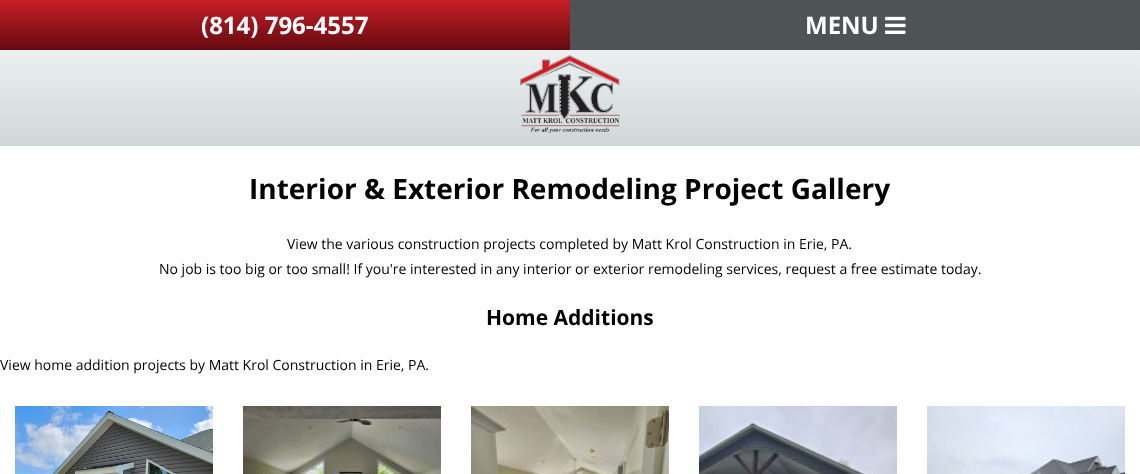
<!DOCTYPE html>
<meta charset="utf-8">
<style>body { margin: 0 } canvas { display: block }</style>
<canvas id="canvas" width="1140" height="474"></canvas>
<img id="img1" src="images/1.png" hidden>
<img id="img2" src="images/2.png" hidden>
<img id="img3" src="images/3.png" hidden>
<img id="img4" src="images/4.png" hidden>
<img id="img5" src="images/5.png" hidden>
<img id="img6" src="images/6.png" hidden>
<img id="img7" src="images/7.png" hidden>
<script>
window.onload = function () {
    const canvas = document.getElementById('canvas');
    const context = canvas.getContext('2d');
    context.miterLimit = 4;
    context.fontKerning = 'normal';
    let gradient;

    context.fillStyle = 'rgb(255, 255, 255)';
    context.fillRect(0, 0, 1140, 474);
    gradient = context.createLinearGradient(570, 0, 570, 146);
    gradient.addColorStop(0, 'rgb(253, 253, 253)');
    gradient.addColorStop(1, 'rgb(206, 215, 216)');
    context.fillStyle = gradient;
    context.fillRect(0, 50, 1140, 96);
    gradient = context.createLinearGradient(285, 0, 285, 50);
    gradient.addColorStop(0, 'rgb(198, 31, 37)');
    gradient.addColorStop(1, 'rgb(101, 10, 16)');
    context.fillStyle = gradient;
    context.fillRect(0, 0, 570, 50);
    context.fillStyle = 'rgb(78, 84, 85)';
    context.fillRect(570, 0, 570, 50);
    context.drawImage(document.getElementById('img1'), 885, 16, 21, 18);
    context.drawImage(document.getElementById('img2'), 520, 55, 100, 78);
    context.drawImage(document.getElementById('img3'), 15, 406, 198, 68);
    context.drawImage(document.getElementById('img4'), 243, 406, 198, 68);
    context.drawImage(document.getElementById('img5'), 471, 406, 198, 68);
    context.drawImage(document.getElementById('img6'), 699, 406, 198, 68);
    context.drawImage(document.getElementById('img7'), 927, 406, 198, 68);
    context.font = 'bold 24px Open Sans';
    context.fillStyle = 'rgb(255, 255, 255)';
    context.fillText('(814) 796-4557', 201, 34);
    context.fillText('MENU', 805, 34);
    context.font = 'bold 28px Open Sans';
    context.fillStyle = 'rgb(0, 0, 0)';
    context.fillText('Interior & Exterior Remodeling Project Gallery', 249, 199);
    context.font = '14px Open Sans';
    context.fillText('View the various construction projects completed by Matt Krol Construction in Erie, PA.', 287, 249);
    context.fillText('No job is too big or too small! If you\'re interested in any interior or exterior remodeling services, request a free estimate today.', 159, 274);
    context.font = 'bold 21px Open Sans';
    context.fillText('Home Additions', 486, 325);
    context.font = '14px Open Sans';
    context.fillText('View home addition projects by Matt Krol Construction in Erie, PA.', 0, 370);
};
</script>
